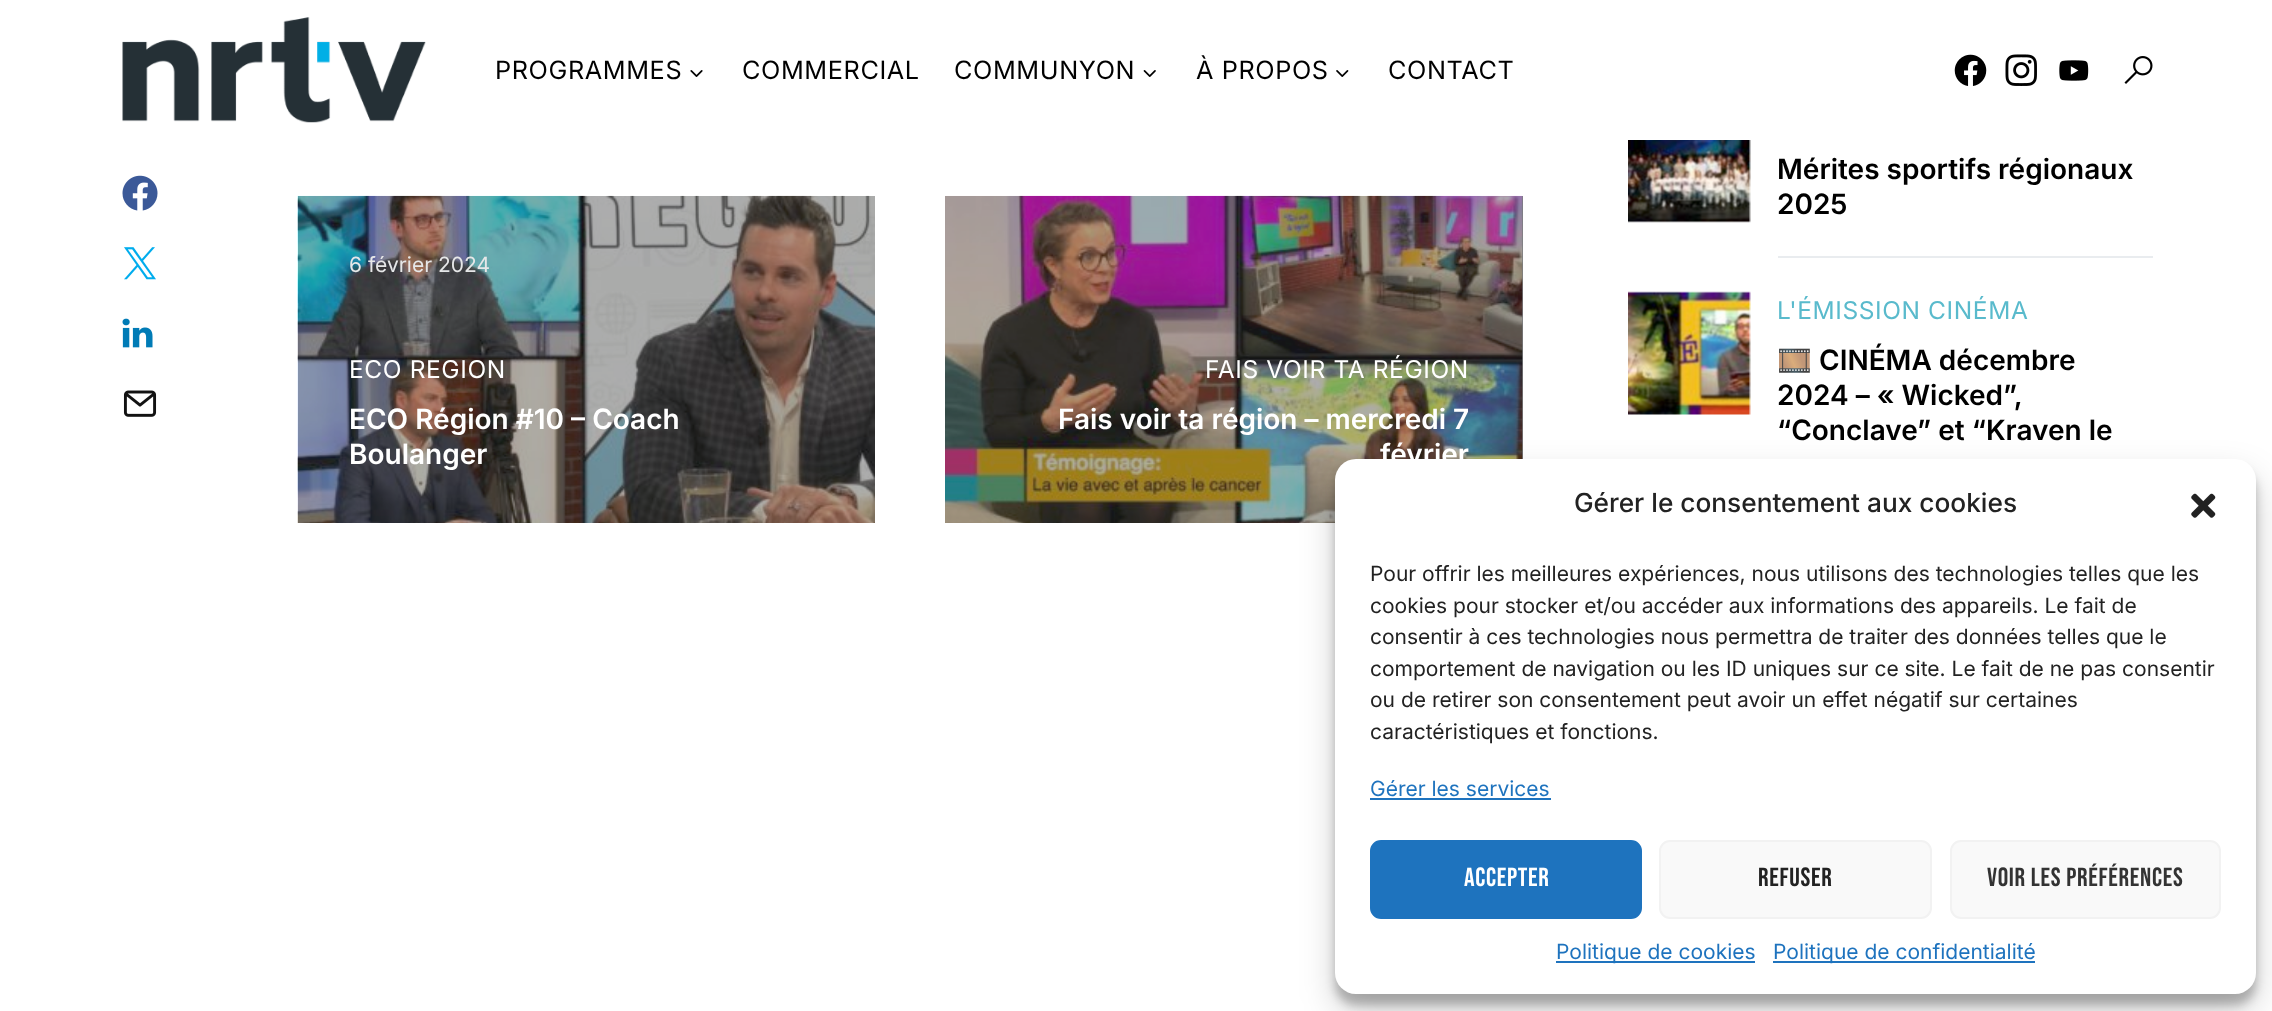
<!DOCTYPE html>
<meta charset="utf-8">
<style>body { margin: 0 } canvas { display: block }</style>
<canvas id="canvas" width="2272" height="1011"></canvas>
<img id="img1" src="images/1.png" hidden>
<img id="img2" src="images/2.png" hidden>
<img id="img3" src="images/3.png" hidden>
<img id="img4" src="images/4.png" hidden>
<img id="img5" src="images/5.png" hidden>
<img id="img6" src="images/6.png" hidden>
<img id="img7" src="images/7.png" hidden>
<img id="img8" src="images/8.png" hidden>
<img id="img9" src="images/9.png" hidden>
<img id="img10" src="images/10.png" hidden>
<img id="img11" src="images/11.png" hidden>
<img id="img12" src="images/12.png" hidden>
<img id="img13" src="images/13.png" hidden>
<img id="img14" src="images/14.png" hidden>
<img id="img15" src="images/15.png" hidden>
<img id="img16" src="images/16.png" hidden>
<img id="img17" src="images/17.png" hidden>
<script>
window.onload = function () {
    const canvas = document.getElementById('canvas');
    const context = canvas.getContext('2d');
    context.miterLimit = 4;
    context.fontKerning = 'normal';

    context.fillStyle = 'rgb(255, 255, 255)';
    context.fillRect(0, 0, 2272, 1011);
    context.drawImage(document.getElementById('img1'), 122, 17, 304, 106);
    context.drawImage(document.getElementById('img2'), 690, 70, 13, 7);
    context.drawImage(document.getElementById('img3'), 1143, 70, 13, 7);
    context.drawImage(document.getElementById('img4'), 1336, 70, 13, 7);
    context.drawImage(document.getElementById('img5'), 1954, 54, 33, 32);
    context.drawImage(document.getElementById('img6'), 2005, 54, 32, 32);
    context.drawImage(document.getElementById('img7'), 2059, 60, 30, 21);
    context.drawImage(document.getElementById('img8'), 2124, 56, 29, 28);
    context.drawImage(document.getElementById('img9'), 122, 175, 36, 36);
    context.drawImage(document.getElementById('img10'), 124, 247, 32, 33);
    context.drawImage(document.getElementById('img11'), 122, 318, 31, 30);
    context.drawImage(document.getElementById('img12'), 123, 390, 34, 27);
    context.drawImage(document.getElementById('img13'), 297, 195, 578, 328);
    context.fillStyle = 'rgb(123, 124, 127)';
    context.fillRect(1522, 196, 1, 263);
    context.drawImage(document.getElementById('img14'), 945, 195, 578, 328);
    context.drawImage(document.getElementById('img15'), 1628, 140, 123, 83);
    context.fillStyle = 'rgb(233, 236, 239)';
    context.fillRect(1778, 256, 375, 2);
    context.drawImage(document.getElementById('img16'), 1628, 291, 123, 124);
    context.fillStyle = 'rgba(0, 0, 0, 0.23)';
    context.filter = 'blur(5px)';
    context.beginPath();
    context.roundRect(1335, 469, 921, 536, 21);
    context.fill();
    context.filter = 'none';
    context.fillStyle = 'rgba(0, 0, 0, 0.19)';
    context.filter = 'blur(17.5px)';
    context.beginPath();
    context.roundRect(1335, 476, 921, 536, 21);
    context.fill();
    context.filter = 'none';
    context.fillStyle = 'rgb(255, 255, 255)';
    context.beginPath();
    context.roundRect(1335, 459, 921, 535, 21);
    context.fill();
    context.drawImage(document.getElementById('img17'), 2191, 493, 25, 25);
    context.fillStyle = 'rgb(30, 115, 190)';
    context.fillRect(1370, 798, 181, 2);
    context.beginPath();
    context.roundRect(1371, 841, 270, 77, 10);
    context.fill();
    context.strokeStyle = 'rgb(30, 115, 190)';
    context.lineWidth = 2;
    context.stroke();
    context.fillStyle = 'rgb(249, 249, 249)';
    context.beginPath();
    context.roundRect(1660, 841, 271, 77, 10);
    context.fill();
    context.strokeStyle = 'rgb(242, 242, 242)';
    context.stroke();
    context.beginPath();
    context.roundRect(1951, 841, 269, 77, 10);
    context.fill();
    context.stroke();
    context.fillStyle = 'rgb(30, 115, 190)';
    context.fillRect(1556, 961, 199, 2);
    context.fillRect(1773, 961, 262, 2);
    context.letterSpacing = '0.6px';
    context.font = '25.25px Inter';
    context.fillStyle = 'rgb(0, 0, 0)';
    context.fillText('PROGRAMMES', 495, 79);
    context.fillText('COMMERCIAL', 742, 79);
    context.fillText('COMMUNYON', 954, 79);
    context.fillText('À PROPOS', 1196, 79);
    context.fillText('CONTACT', 1388, 79);
    context.letterSpacing = '0px';
    context.font = '21px Inter';
    context.fillStyle = 'rgb(230, 231, 232)';
    context.fillText('6 février 2024', 349, 272);
    context.letterSpacing = '0.6px';
    context.font = '24.5px Inter';
    context.fillStyle = 'rgb(255, 255, 255)';
    context.fillText('ECO REGION', 349, 378);
    context.letterSpacing = '0px';
    context.font = '600 28px Inter';
    context.fillText('ECO Région #10 – Coach', 349, 429);
    context.fillText('Boulanger', 349, 464);
    context.letterSpacing = '0.6px';
    context.font = '24.5px Inter';
    context.fillText('FAIS VOIR TA RÉGION', 1205, 378);
    context.letterSpacing = '0px';
    context.font = '600 28px Inter';
    context.fillText('Fais voir ta région – mercredi 7', 1058, 429);
    context.fillText('février', 1380, 464);
    context.fillStyle = 'rgb(0, 0, 0)';
    context.fillText('Mérites sportifs régionaux', 1777, 179);
    context.fillText('2025', 1777, 214);
    context.letterSpacing = '0.6px';
    context.font = '24.5px Inter';
    context.fillStyle = 'rgb(89, 186, 204)';
    context.fillText('L\'ÉMISSION CINÉMA', 1777, 319);
    context.letterSpacing = '0px';
    context.font = 'bold 28px Noto Color Emoji';
    context.fillStyle = 'rgb(0, 0, 0)';
    context.fillText('🎞', 1777, 370);
    context.font = '600 28px Inter';
    context.fillText('CINÉMA décembre', 1819, 370);
    context.fillText('2024 – « Wicked”,', 1777, 405);
    context.fillText('“Conclave” et “Kraven le', 1777, 440);
    context.font = '500 26.25px Inter';
    context.fillStyle = 'rgb(34, 34, 34)';
    context.fillText('Gérer le consentement aux cookies', 1574, 512);
    context.font = '21px Inter';
    context.fillText('Pour offrir les meilleures expériences, nous utilisons des technologies telles que les', 1370, 581);
    context.fillText('cookies pour stocker et/ou accéder aux informations des appareils. Le fait de', 1370, 613);
    context.fillText('consentir à ces technologies nous permettra de traiter des données telles que le', 1370, 644);
    context.fillText('comportement de navigation ou les ID uniques sur ce site. Le fait de ne pas consentir', 1370, 676);
    context.fillText('ou de retirer son consentement peut avoir un effet négatif sur certaines', 1370, 707);
    context.fillText('caractéristiques et fonctions.', 1370, 739);
    context.fillStyle = 'rgb(30, 115, 190)';
    context.fillText('Gérer les services', 1370, 796);
    context.letterSpacing = '0.7px';
    context.font = '26.25px Bebas Neue';
    context.fillStyle = 'rgb(255, 255, 255)';
    context.fillText('Accepter', 1464, 886);
    context.fillStyle = 'rgb(34, 34, 34)';
    context.fillText('Refuser', 1758, 886);
    context.fillStyle = 'rgb(51, 51, 51)';
    context.fillText('Voir les préférences', 1987, 886);
    context.letterSpacing = '0px';
    context.font = '21px Inter';
    context.fillStyle = 'rgb(30, 115, 190)';
    context.fillText('Politique de cookies', 1556, 959);
    context.fillText('Politique de confidentialité', 1773, 959);
};
</script>
